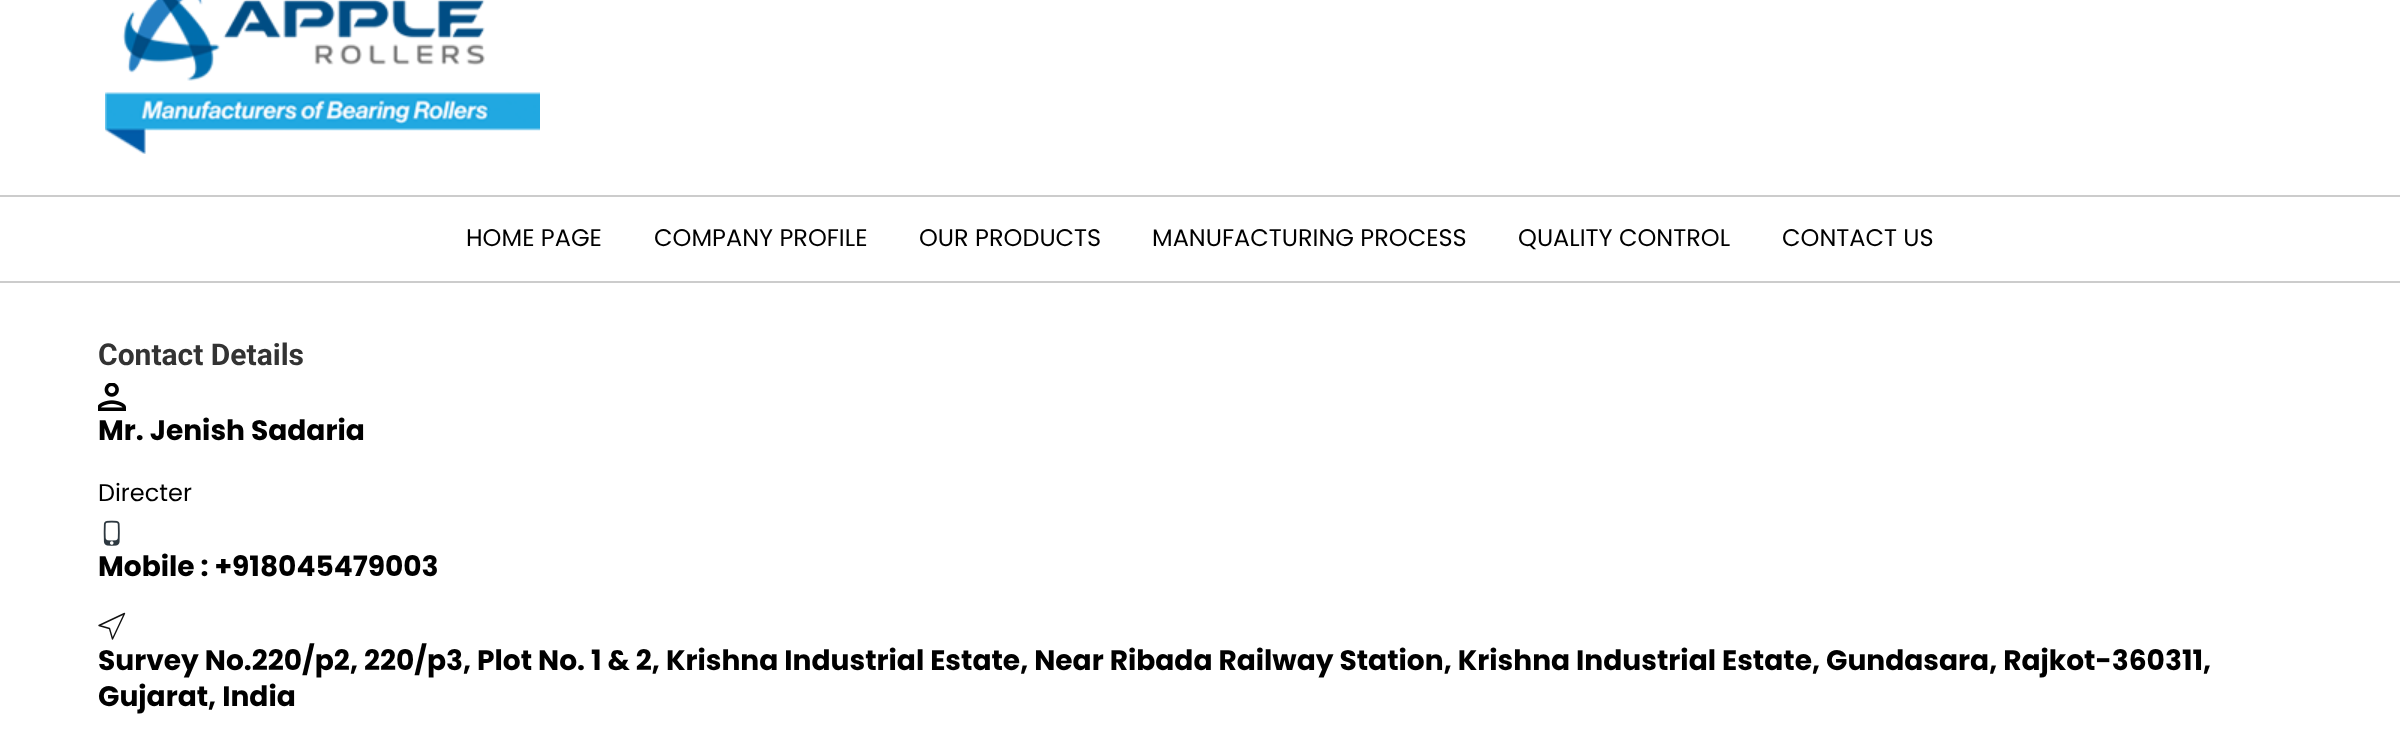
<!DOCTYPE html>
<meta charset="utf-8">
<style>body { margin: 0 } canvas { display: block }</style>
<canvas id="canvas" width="2400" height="751"></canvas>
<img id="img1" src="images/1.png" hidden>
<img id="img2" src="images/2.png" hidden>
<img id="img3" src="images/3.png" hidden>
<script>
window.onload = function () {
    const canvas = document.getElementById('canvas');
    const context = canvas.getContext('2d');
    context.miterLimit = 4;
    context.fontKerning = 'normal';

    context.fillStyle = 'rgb(255, 255, 255)';
    context.fillRect(0, 0, 2400, 751);
    context.drawImage(document.getElementById('img1'), 105, 0, 435, 154);
    context.fillStyle = 'rgb(204, 204, 204)';
    context.fillRect(0, 195, 2400, 2);
    context.fillRect(0, 281, 2400, 2);
    context.drawImage(document.getElementById('img2'), 98, 383, 28, 28);
    context.drawImage(document.getElementById('img3'), 103, 520, 17, 26);
    context.beginPath();
    context.moveTo(99, 625.5);
    context.lineTo(124.5, 613.5);
    context.lineTo(112.5, 639);
    context.lineTo(109.5, 628.5);
    context.closePath();
    context.strokeStyle = 'rgb(18, 18, 18)';
    context.lineWidth = 1.4;
    context.lineCap = 'round';
    context.lineJoin = 'round';
    context.stroke();
    context.font = '24px Poppins';
    context.fillStyle = 'rgb(0, 0, 0)';
    context.fillText('HOME PAGE', 466, 246);
    context.fillText('COMPANY PROFILE', 654, 246);
    context.fillText('OUR PRODUCTS', 919, 246);
    context.fillText('MANUFACTURING PROCESS', 1152, 246);
    context.fillText('QUALITY CONTROL', 1518, 246);
    context.fillText('CONTACT US', 1782, 246);
    context.font = 'bold 30px Roboto';
    context.fillStyle = 'rgb(51, 51, 51)';
    context.fillText('Contact Details', 98, 365);
    context.font = 'bold 28.08px Poppins';
    context.fillStyle = 'rgb(0, 0, 0)';
    context.fillText('Mr. Jenish Sadaria', 98, 440);
    context.font = '24px Poppins';
    context.fillText('Directer', 98, 501);
    context.font = 'bold 28.08px Poppins';
    context.fillText('Mobile : +918045479003', 98, 576);
    context.fillText('Survey No.220/p2, 220/p3, Plot No. 1 & 2, Krishna Industrial Estate, Near Ribada Railway Station, Krishna Industrial Estate, Gundasara, Rajkot-360311,', 98, 670);
    context.fillText('Gujarat, India', 98, 706);
};
</script>
